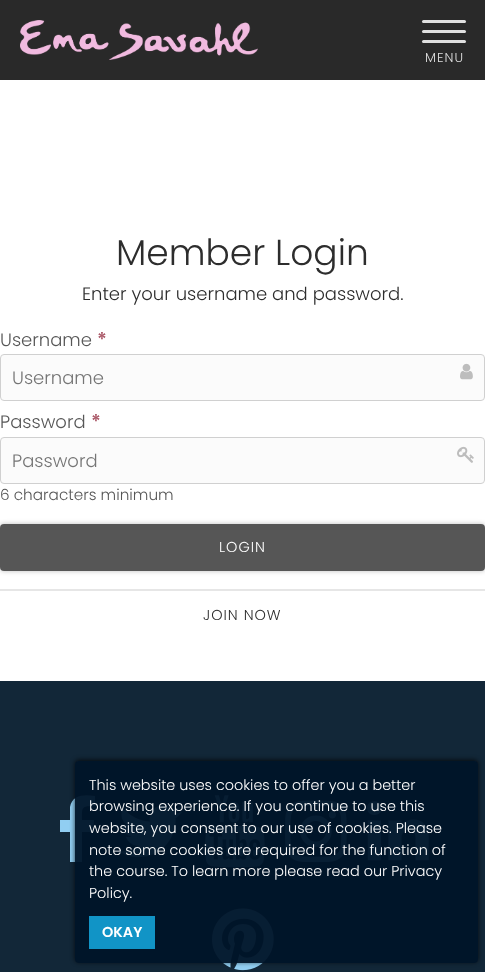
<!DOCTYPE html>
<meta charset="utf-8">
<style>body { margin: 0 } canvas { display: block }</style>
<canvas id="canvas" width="485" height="972"></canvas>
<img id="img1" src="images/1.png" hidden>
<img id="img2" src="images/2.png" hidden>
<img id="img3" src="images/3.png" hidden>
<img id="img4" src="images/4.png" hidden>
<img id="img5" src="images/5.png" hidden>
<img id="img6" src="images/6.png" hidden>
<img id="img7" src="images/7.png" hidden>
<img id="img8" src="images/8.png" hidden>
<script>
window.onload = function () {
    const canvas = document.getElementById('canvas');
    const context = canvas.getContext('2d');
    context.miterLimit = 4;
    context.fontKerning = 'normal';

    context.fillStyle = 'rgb(255, 255, 255)';
    context.fillRect(0, 0, 485, 972);
    context.fillStyle = 'rgb(41, 41, 41)';
    context.fillRect(0, 0, 485, 80);
    context.drawImage(document.getElementById('img1'), 20, 20, 238, 40);
    context.fillStyle = 'rgb(223, 223, 223)';
    context.beginPath();
    context.roundRect(422, 20, 44, 3, 1.5);
    context.fill();
    context.beginPath();
    context.roundRect(422, 30, 44, 3, 1.5);
    context.fill();
    context.beginPath();
    context.roundRect(422, 40, 44, 3, 1.5);
    context.fill();
    context.fillStyle = 'rgb(251, 251, 251)';
    context.beginPath();
    context.roundRect(0.5, 354.5, 484, 46, 3.5);
    context.fill();
    context.strokeStyle = 'rgb(208, 208, 208)';
    context.stroke();
    context.drawImage(document.getElementById('img2'), 460, 363, 13, 17);
    context.beginPath();
    context.roundRect(0.5, 437.5, 484, 46, 3.5);
    context.fill();
    context.stroke();
    context.drawImage(document.getElementById('img3'), 457, 446, 17, 17);
    context.save();
    context.beginPath();
    context.moveTo(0, 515);
    context.lineTo(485, 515);
    context.lineTo(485, 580);
    context.lineTo(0, 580);
    context.closePath();
    context.moveTo(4, 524);
    context.lineTo(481, 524);
    context.bezierCurveTo(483, 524, 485, 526, 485, 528);
    context.lineTo(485, 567);
    context.bezierCurveTo(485, 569, 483, 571, 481, 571);
    context.lineTo(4, 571);
    context.bezierCurveTo(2, 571, 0, 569, 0, 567);
    context.lineTo(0, 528);
    context.bezierCurveTo(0, 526, 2, 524, 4, 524);
    context.closePath();
    context.clip('evenodd');
    context.fillStyle = 'rgba(0, 0, 0, 0.25)';
    context.filter = 'blur(2.5px)';
    context.beginPath();
    context.roundRect(0, 524, 485, 47, 4);
    context.fill();
    context.filter = 'none';
    context.restore();
    context.fillStyle = 'rgba(68, 68, 68, 0.9)';
    context.beginPath();
    context.roundRect(0, 524, 485, 47, 4);
    context.fill();
    context.fillStyle = 'rgb(230, 230, 230)';
    context.fillRect(0, 589, 485, 2);
    context.fillStyle = 'rgb(18, 39, 56)';
    context.fillRect(0, 681, 485, 291);
    context.fillStyle = 'rgb(145, 206, 242)';
    context.beginPath();
    context.moveTo(95, 796);
    context.lineTo(95, 806);
    context.bezierCurveTo(81, 806, 82, 807, 82, 820);
    context.lineTo(94, 820);
    context.lineTo(93, 832);
    context.lineTo(82, 832);
    context.lineTo(82, 862);
    context.lineTo(70, 862);
    context.lineTo(70, 832);
    context.lineTo(60, 832);
    context.lineTo(60, 820);
    context.lineTo(70, 820);
    context.lineTo(70, 807);
    context.bezierCurveTo(72, 795, 84, 794, 95, 796);
    context.closePath();
    context.fill();
    context.drawImage(document.getElementById('img4'), 119, 805, 63, 52);
    context.drawImage(document.getElementById('img5'), 205, 795, 60, 73);
    context.drawImage(document.getElementById('img6'), 285, 800, 62, 63);
    context.drawImage(document.getElementById('img7'), 367, 801, 62, 60);
    context.drawImage(document.getElementById('img8'), 212, 908, 62, 63);
    context.save();
    context.beginPath();
    context.moveTo(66, 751);
    context.lineTo(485, 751);
    context.lineTo(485, 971);
    context.lineTo(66, 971);
    context.closePath();
    context.moveTo(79, 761);
    context.lineTo(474, 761);
    context.bezierCurveTo(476, 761, 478, 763, 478, 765);
    context.lineTo(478, 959);
    context.bezierCurveTo(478, 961, 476, 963, 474, 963);
    context.lineTo(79, 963);
    context.bezierCurveTo(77, 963, 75, 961, 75, 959);
    context.lineTo(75, 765);
    context.bezierCurveTo(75, 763, 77, 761, 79, 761);
    context.closePath();
    context.clip('evenodd');
    context.fillStyle = 'rgba(0, 0, 0, 0.75)';
    context.filter = 'blur(2.5px)';
    context.beginPath();
    context.roundRect(75, 760, 403, 202, 4);
    context.fill();
    context.filter = 'none';
    context.restore();
    context.fillStyle = 'rgba(0, 20, 40, 0.95)';
    context.beginPath();
    context.roundRect(75, 761, 403, 202, 4);
    context.fill();
    context.fillStyle = 'rgb(17, 148, 198)';
    context.fillRect(89, 916, 66, 33);
    context.letterSpacing = '1px';
    context.font = '300 13px Poppins';
    context.fillStyle = 'rgb(223, 223, 223)';
    context.fillText('MENU', 425, 62);
    context.letterSpacing = '0px';
    context.font = '300 36px Poppins';
    context.fillStyle = 'rgb(45, 45, 45)';
    context.fillText('Member Login', 116, 265);
    context.font = '300 18px Poppins';
    context.fillText('Enter your username and password.', 82, 300);
    context.fillStyle = 'rgb(87, 87, 87)';
    context.fillText('Username', 0, 346);
    context.font = '600 19px Poppins';
    context.fillStyle = 'rgb(173, 93, 108)';
    context.fillText('*', 97, 346);
    context.font = '300 18px Poppins';
    context.fillStyle = 'rgb(117, 117, 117)';
    context.fillText('Username', 12, 384);
    context.fillStyle = 'rgb(87, 87, 87)';
    context.fillText('Password', 0, 428);
    context.font = '600 19px Poppins';
    context.fillStyle = 'rgb(173, 93, 108)';
    context.fillText('*', 91, 428);
    context.font = '300 18px Poppins';
    context.fillStyle = 'rgb(117, 117, 117)';
    context.fillText('Password', 12, 467);
    context.font = '300 15.25px Poppins';
    context.fillStyle = 'rgb(87, 87, 87)';
    context.fillText('6 characters minimum', 0, 500);
    context.letterSpacing = '1px';
    context.font = '300 14.4px Poppins';
    context.fillStyle = 'rgb(255, 255, 255)';
    context.fillText('LOGIN', 219, 552);
    context.fillStyle = 'rgb(45, 45, 45)';
    context.fillText('JOIN NOW', 203, 620);
    context.letterSpacing = '0px';
    context.fillStyle = 'rgb(255, 255, 255)';
    context.fillText('This website uses cookies to offer you a better', 89, 790);
    context.fillText('browsing experience. If you continue to use this', 89, 811);
    context.fillText('website, you consent to our use of cookies. Please', 89, 833);
    context.fillText('note some cookies are required for the function of', 89, 855);
    context.fillText('the course. To learn more please read our Privacy', 89, 876);
    context.fillText('Policy.', 89, 898);
    context.font = '600 14.4px Poppins';
    context.fillText('OKAY', 102, 937);
};
</script>
